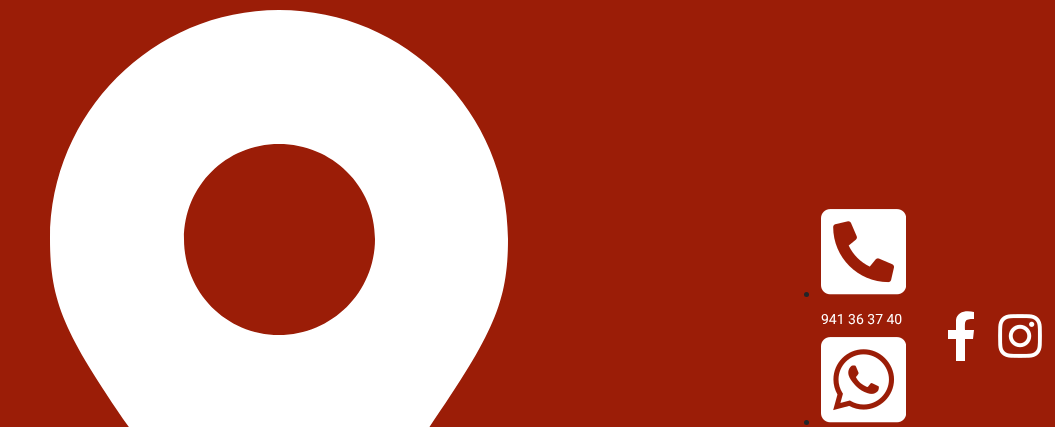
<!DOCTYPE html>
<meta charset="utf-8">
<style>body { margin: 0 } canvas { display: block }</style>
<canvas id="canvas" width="1055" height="427"></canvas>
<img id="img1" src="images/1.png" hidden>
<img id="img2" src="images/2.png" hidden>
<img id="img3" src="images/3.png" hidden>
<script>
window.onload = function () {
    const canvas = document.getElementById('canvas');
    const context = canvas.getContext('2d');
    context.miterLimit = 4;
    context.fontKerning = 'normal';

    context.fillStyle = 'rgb(155, 29, 7)';
    context.fillRect(0, 0, 1055, 427);
    context.fillStyle = 'rgb(255, 255, 255)';
    context.beginPath();
    context.moveTo(256, 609);
    context.bezierCurveTo(82, 357, 50, 332, 50, 239);
    context.bezierCurveTo(50, 113, 153, 10, 279, 10);
    context.bezierCurveTo(406, 10, 508, 113, 508, 239);
    context.bezierCurveTo(508, 332, 476, 357, 303, 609);
    context.bezierCurveTo(291, 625, 267, 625, 256, 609);
    context.closePath();
    context.moveTo(279, 335);
    context.bezierCurveTo(332, 335, 375, 292, 375, 239);
    context.bezierCurveTo(375, 186, 332, 144, 279, 144);
    context.bezierCurveTo(226, 144, 184, 186, 184, 239);
    context.bezierCurveTo(184, 292, 226, 335, 279, 335);
    context.closePath();
    context.fill();
    context.fillStyle = 'rgb(33, 37, 41)';
    context.beginPath();
    context.arc(806.5, 294.5, 2.5, 0, 2 * Math.PI);
    context.fill();
    context.drawImage(document.getElementById('img1'), 821, 209, 85, 86);
    context.beginPath();
    context.arc(806.5, 422.5, 2.5, 0, 2 * Math.PI);
    context.fill();
    context.drawImage(document.getElementById('img2'), 821, 337, 85, 86);
    context.fillStyle = 'rgb(255, 255, 255)';
    context.beginPath();
    context.moveTo(973, 339);
    context.lineTo(974, 330);
    context.lineTo(965, 330);
    context.bezierCurveTo(965, 321, 964, 319, 974, 319);
    context.lineTo(974, 312);
    context.bezierCurveTo(967, 310, 957, 311, 956, 320);
    context.lineTo(956, 330);
    context.lineTo(948, 330);
    context.lineTo(948, 339);
    context.lineTo(956, 339);
    context.lineTo(956, 361);
    context.lineTo(965, 361);
    context.lineTo(965, 339);
    context.closePath();
    context.fill();
    context.drawImage(document.getElementById('img3'), 998, 314, 44, 44);
    context.font = '14px Heebo';
    context.fillText('941 36 37 40', 821, 324);
};
</script>
